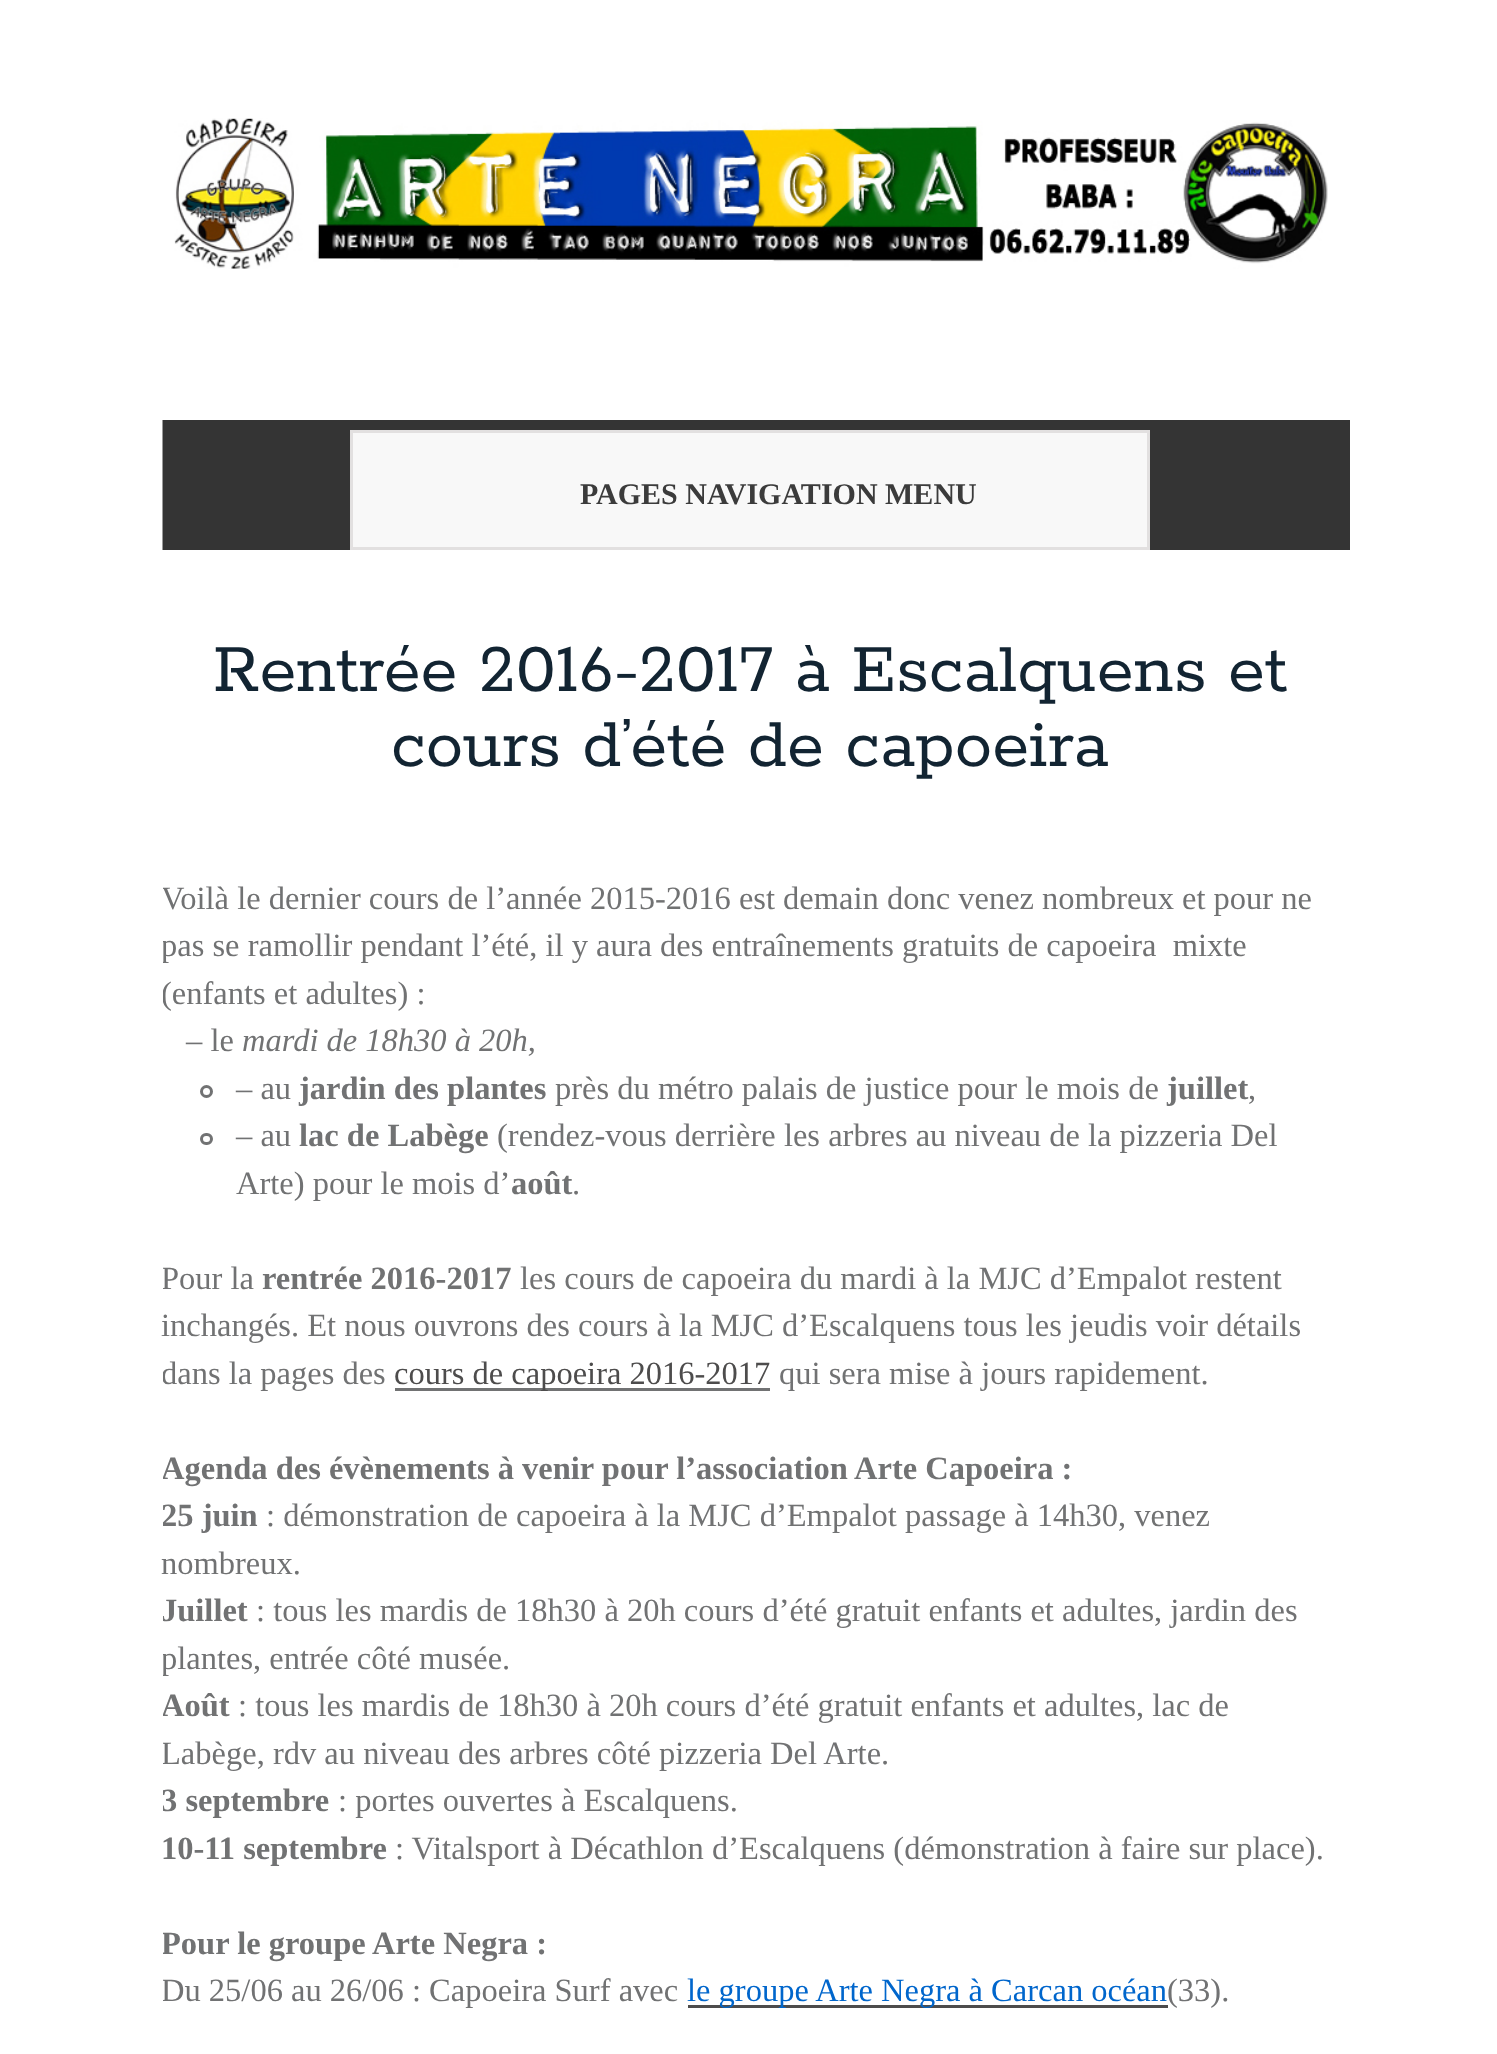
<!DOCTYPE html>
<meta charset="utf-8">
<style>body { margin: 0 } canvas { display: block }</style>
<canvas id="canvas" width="1497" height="2054"></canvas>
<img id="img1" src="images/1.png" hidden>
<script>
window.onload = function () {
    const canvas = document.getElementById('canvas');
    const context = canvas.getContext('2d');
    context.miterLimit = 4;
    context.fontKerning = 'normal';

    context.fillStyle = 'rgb(255, 255, 255)';
    context.fillRect(0, 0, 1497, 2054);
    context.drawImage(document.getElementById('img1'), 174, 118, 1154, 151);
    context.fillStyle = 'rgb(52, 52, 52)';
    context.fillRect(163, 420, 1187, 130);
    context.fillStyle = 'rgb(154, 154, 154)';
    context.fillRect(162, 420, 1, 130);
    context.fillStyle = 'rgb(248, 248, 248)';
    context.beginPath();
    context.rect(351.5, 431.5, 797, 117);
    context.fill();
    context.strokeStyle = 'rgb(226, 224, 224)';
    context.lineWidth = 3;
    context.stroke();
    context.beginPath();
    context.arc(206.5, 1091.5, 5, 0, 2 * Math.PI);
    context.strokeStyle = 'rgb(113, 114, 115)';
    context.stroke();
    context.beginPath();
    context.roundRect(201.5, 1134.5, 10, 9, 4.5);
    context.stroke();
    context.fillStyle = 'rgb(113, 114, 115)';
    context.fillRect(395, 1388, 375, 3);
    context.fillStyle = 'rgb(77, 76, 76)';
    context.fillRect(688, 2005, 480, 3);
    context.font = 'bold 30px Liberation Serif';
    context.fillStyle = 'rgb(59, 59, 59)';
    context.fillText('PAGES NAVIGATION MENU', 580, 504);
    context.font = '600 75px Rokkitt';
    context.fillStyle = 'rgb(18, 36, 50)';
    context.fillText('Rentrée 2016-2017 à Escalquens et', 213, 691);
    context.fillText('cours d’été de capoeira', 391, 766);
    context.save();
    context.beginPath();
    context.rect(163, 875, 1175, 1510);
    context.clip();
    context.font = '32.5px Liberation Serif';
    context.fillStyle = 'rgb(113, 114, 115)';
    context.fillText('Voilà le dernier cours de l’année 2015-2016 est demain donc venez nombreux et pour ne', 161, 909);
    context.fillText('pas se ramollir pendant l’été, il y aura des entraînements gratuits de capoeira  mixte', 161, 956);
    context.fillText('(enfants et adultes) :', 161, 1004);
    context.restore();
    context.font = '32.5px Liberation Serif';
    context.fillStyle = 'rgb(113, 114, 115)';
    context.fillText('– le', 186, 1051);
    context.font = 'italic 32.5px Liberation Serif';
    context.fillText('mardi de 18h30 à 20h,', 242, 1051);
    context.font = '32.5px Liberation Serif';
    context.fillText('– au', 236, 1099);
    context.font = 'bold 32.5px Liberation Serif';
    context.fillText('jardin des plantes', 299, 1099);
    context.font = '32.5px Liberation Serif';
    context.fillText('près du métro palais de justice pour le mois de', 555, 1099);
    context.font = 'bold 32.5px Liberation Serif';
    context.fillText('juillet', 1167, 1099);
    context.font = '32.5px Liberation Serif';
    context.fillText(',', 1248, 1099);
    context.fillText('– au', 236, 1146);
    context.font = 'bold 32.5px Liberation Serif';
    context.fillText('lac de Labège', 299, 1146);
    context.font = '32.5px Liberation Serif';
    context.fillText('(rendez-vous derrière les arbres au niveau de la pizzeria Del', 497, 1146);
    context.fillText('Arte) pour le mois d’', 236, 1194);
    context.font = 'bold 32.5px Liberation Serif';
    context.fillText('août', 511, 1194);
    context.font = '32.5px Liberation Serif';
    context.fillText('.', 572, 1194);
    context.save();
    context.beginPath();
    context.rect(163, 875, 1175, 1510);
    context.clip();
    context.fillText('Pour la', 161, 1289);
    context.restore();
    context.font = 'bold 32.5px Liberation Serif';
    context.fillText('rentrée 2016-2017', 262, 1289);
    context.font = '32.5px Liberation Serif';
    context.fillText('les cours de capoeira du mardi à la MJC d’Empalot restent', 520, 1289);
    context.fillText('inchangés. Et nous ouvrons des cours à la MJC d’Escalquens tous les jeudis voir détails', 161, 1336);
    context.save();
    context.beginPath();
    context.rect(163, 875, 1175, 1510);
    context.clip();
    context.fillText('dans la pages des', 161, 1384);
    context.restore();
    context.fillStyle = 'rgb(77, 76, 76)';
    context.fillText('cours de capoeira 2016-2017', 394, 1384);
    context.fillStyle = 'rgb(113, 114, 115)';
    context.fillText('qui sera mise à jours rapidement.', 779, 1384);
    context.save();
    context.beginPath();
    context.rect(163, 875, 1175, 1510);
    context.clip();
    context.font = 'bold 32.5px Liberation Serif';
    context.fillText('Agenda des évènements à venir pour l’association Arte Capoeira :', 161, 1479);
    context.fillText('25 juin', 161, 1526);
    context.restore();
    context.fillText(': démonstration de capoeira à la MJC d’Empalot passage à 14h30, venez', 266, 1526);
    context.fillText('nombreux.', 161, 1574);
    context.save();
    context.beginPath();
    context.rect(163, 875, 1175, 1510);
    context.clip();
    context.font = 'bold 32.5px Liberation Serif';
    context.fillText('Juillet', 161, 1621);
    context.restore();
    context.fillText(': tous les mardis de 18h30 à 20h cours d’été gratuit enfants et adultes, jardin des', 256, 1621);
    context.save();
    context.beginPath();
    context.rect(163, 875, 1175, 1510);
    context.clip();
    context.fillText('plantes, entrée côté musée.', 161, 1669);
    context.font = 'bold 32.5px Liberation Serif';
    context.fillText('Août', 161, 1716);
    context.restore();
    context.fillText(': tous les mardis de 18h30 à 20h cours d’été gratuit enfants et adultes, lac de', 238, 1716);
    context.save();
    context.beginPath();
    context.rect(163, 875, 1175, 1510);
    context.clip();
    context.fillText('Labège, rdv au niveau des arbres côté pizzeria Del Arte.', 161, 1764);
    context.font = 'bold 32.5px Liberation Serif';
    context.fillText('3 septembre', 161, 1811);
    context.restore();
    context.fillText(': portes ouvertes à Escalquens.', 338, 1811);
    context.font = 'bold 32.5px Liberation Serif';
    context.fillText('10-11 septembre', 161, 1859);
    context.font = '32.5px Liberation Serif';
    context.fillText(': Vitalsport à Décathlon d’Escalquens (démonstration à faire sur place).', 395, 1859);
    context.save();
    context.beginPath();
    context.rect(163, 875, 1175, 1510);
    context.clip();
    context.font = 'bold 32.5px Liberation Serif';
    context.fillText('Pour le groupe Arte Negra :', 161, 1954);
    context.font = '32.5px Liberation Serif';
    context.fillText('Du 25/06 au 26/06 : Capoeira Surf avec', 161, 2001);
    context.restore();
    context.fillStyle = 'rgb(0, 102, 204)';
    context.fillText('le groupe Arte Negra à Carcan océan', 687, 2001);
    context.fillStyle = 'rgb(113, 114, 115)';
    context.fillText('(33).', 1167, 2001);
};
</script>
